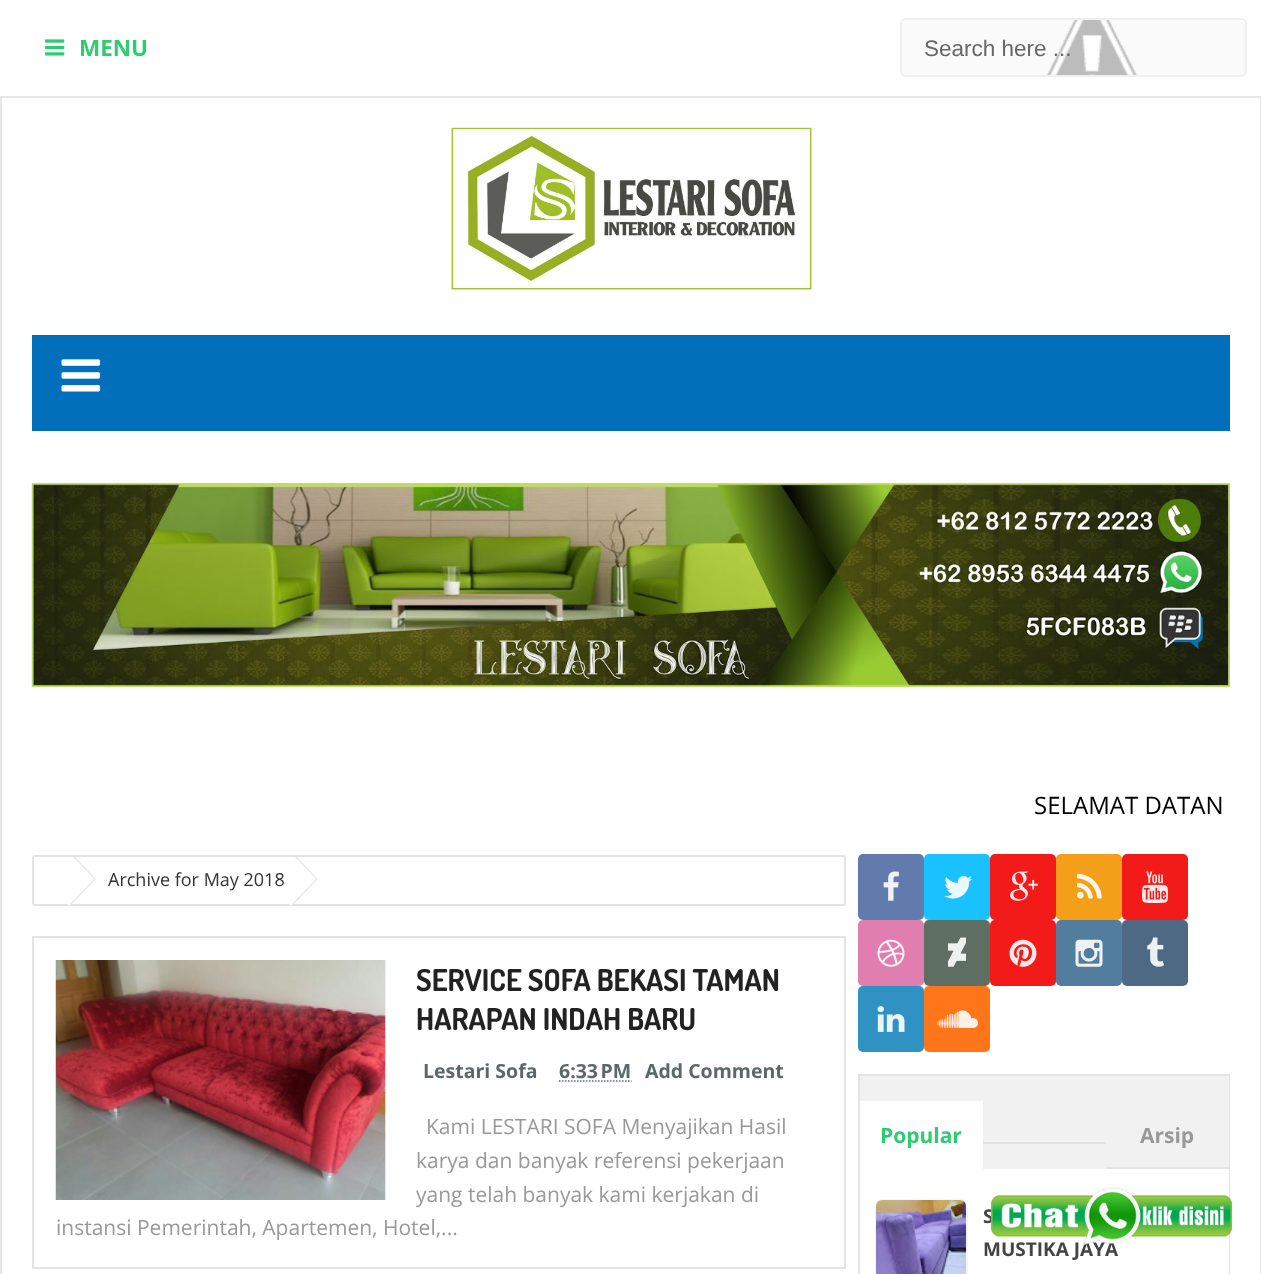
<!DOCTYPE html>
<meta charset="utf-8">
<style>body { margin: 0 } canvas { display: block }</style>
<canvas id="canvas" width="1261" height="1274"></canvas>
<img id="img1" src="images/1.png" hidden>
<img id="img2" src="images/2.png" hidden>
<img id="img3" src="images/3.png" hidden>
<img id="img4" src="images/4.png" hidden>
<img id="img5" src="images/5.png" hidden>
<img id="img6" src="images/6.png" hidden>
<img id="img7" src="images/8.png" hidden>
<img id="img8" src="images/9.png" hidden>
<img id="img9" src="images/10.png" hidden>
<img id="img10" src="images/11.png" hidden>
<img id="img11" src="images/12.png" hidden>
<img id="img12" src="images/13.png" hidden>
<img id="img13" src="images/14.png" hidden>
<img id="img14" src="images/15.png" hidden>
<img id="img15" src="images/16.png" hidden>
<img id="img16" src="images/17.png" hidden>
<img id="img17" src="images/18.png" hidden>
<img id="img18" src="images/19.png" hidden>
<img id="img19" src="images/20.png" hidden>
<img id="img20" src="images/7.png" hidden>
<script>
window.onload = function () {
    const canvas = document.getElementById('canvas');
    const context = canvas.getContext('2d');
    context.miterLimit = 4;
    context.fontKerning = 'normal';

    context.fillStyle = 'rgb(255, 255, 255)';
    context.fillRect(0, 0, 1261, 1274);
    context.drawImage(document.getElementById('img1'), 45, 39, 20, 17);
    context.fillStyle = 'rgb(250, 250, 250)';
    context.beginPath();
    context.roundRect(900, 18, 347, 59, 6);
    context.fill();
    context.drawImage(document.getElementById('img2'), 1046, 20, 92, 55);
    context.beginPath();
    context.roundRect(901, 19, 345, 57, 5);
    context.strokeStyle = 'rgb(240, 240, 240)';
    context.lineWidth = 2;
    context.stroke();
    context.strokeStyle = 'rgb(230, 230, 230)';
    context.strokeRect(1, 97, 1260, 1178);
    context.drawImage(document.getElementById('img3'), 451, 127, 361, 163);
    context.fillStyle = 'rgb(1, 111, 186)';
    context.fillRect(32, 335, 1198, 96);
    context.drawImage(document.getElementById('img4'), 61, 359, 40, 33);
    context.drawImage(document.getElementById('img5'), 31, 483, 1199, 204);
    context.beginPath();
    context.roundRect(33, 856, 812, 49, 2);
    context.strokeStyle = 'rgb(227, 227, 227)';
    context.stroke();
    context.fillStyle = 'rgb(233, 233, 233)';
    context.beginPath();
    context.moveTo(75, 857);
    context.lineTo(96, 879);
    context.lineTo(71, 905);
    context.lineTo(68, 905);
    context.lineTo(68, 857);
    context.closePath();
    context.fill();
    context.fillStyle = 'rgb(255, 255, 255)';
    context.beginPath();
    context.moveTo(73, 857);
    context.lineTo(94, 879);
    context.lineTo(69, 905);
    context.lineTo(68, 905);
    context.lineTo(68, 857);
    context.closePath();
    context.fill();
    context.fillStyle = 'rgb(233, 233, 233)';
    context.beginPath();
    context.moveTo(297, 857);
    context.lineTo(318, 879);
    context.lineTo(293, 905);
    context.lineTo(290, 905);
    context.lineTo(290, 857);
    context.closePath();
    context.fill();
    context.fillStyle = 'rgb(255, 255, 255)';
    context.beginPath();
    context.moveTo(295, 857);
    context.lineTo(316, 879);
    context.lineTo(291, 905);
    context.lineTo(290, 905);
    context.lineTo(290, 857);
    context.closePath();
    context.fill();
    context.strokeRect(33, 937, 812, 331);
    context.fillStyle = 'rgb(250, 250, 250)';
    context.fillRect(385, 960, 1, 240);
    context.drawImage(document.getElementById('img6'), 55, 960, 331, 240);
    context.beginPath();
    context.moveTo(559, 1081);
    context.lineTo(631.5, 1081);
    context.strokeStyle = 'rgb(91, 104, 106)';
    context.lineWidth = 1.5;
    context.setLineDash([1.5, 1.5]);
    context.stroke();
    context.fillStyle = 'rgb(98, 123, 173)';
    context.beginPath();
    context.roundRect(858, 854, 66, 66, 5);
    context.fill();
    context.drawImage(document.getElementById('img7'), 883, 871, 16, 30);
    context.fillStyle = 'rgb(26, 193, 255)';
    context.beginPath();
    context.roundRect(924, 854, 66, 66, 5);
    context.fill();
    context.drawImage(document.getElementById('img8'), 944, 876, 28, 23);
    context.fillStyle = 'rgb(243, 26, 26)';
    context.beginPath();
    context.roundRect(990, 854, 66, 66, 5);
    context.fill();
    context.drawImage(document.getElementById('img9'), 1010, 871, 28, 30);
    context.fillStyle = 'rgb(243, 159, 26)';
    context.beginPath();
    context.roundRect(1056, 854, 66, 66, 5);
    context.fill();
    context.drawImage(document.getElementById('img10'), 1077, 873, 25, 26);
    context.fillStyle = 'rgb(243, 26, 26)';
    context.beginPath();
    context.roundRect(1122, 854, 66, 66, 5);
    context.fill();
    context.drawImage(document.getElementById('img11'), 1142, 871, 26, 32);
    context.fillStyle = 'rgb(224, 127, 175)';
    context.beginPath();
    context.roundRect(858, 920, 66, 66, 5);
    context.fill();
    context.drawImage(document.getElementById('img12'), 877, 939, 28, 28);
    context.fillStyle = 'rgb(94, 110, 98)';
    context.beginPath();
    context.roundRect(924, 920, 66, 66, 5);
    context.fill();
    context.drawImage(document.getElementById('img13'), 948, 937, 18, 30);
    context.fillStyle = 'rgb(243, 26, 26)';
    context.beginPath();
    context.roundRect(990, 920, 66, 66, 5);
    context.fill();
    context.drawImage(document.getElementById('img14'), 1009, 939, 28, 28);
    context.fillStyle = 'rgb(83, 125, 159)';
    context.beginPath();
    context.roundRect(1056, 920, 66, 66, 5);
    context.fill();
    context.drawImage(document.getElementById('img15'), 1075, 939, 28, 28);
    context.fillStyle = 'rgb(77, 105, 131)';
    context.beginPath();
    context.roundRect(1122, 920, 66, 66, 5);
    context.fill();
    context.drawImage(document.getElementById('img16'), 1147, 937, 17, 30);
    context.fillStyle = 'rgb(48, 145, 195)';
    context.beginPath();
    context.roundRect(858, 986, 66, 66, 5);
    context.fill();
    context.drawImage(document.getElementById('img17'), 877, 1006, 28, 26);
    context.fillStyle = 'rgb(255, 117, 26)';
    context.beginPath();
    context.roundRect(924, 986, 66, 66, 5);
    context.fill();
    context.drawImage(document.getElementById('img18'), 937, 1010, 41, 18);
    context.strokeStyle = 'rgb(227, 227, 227)';
    context.lineWidth = 2;
    context.setLineDash([]);
    context.strokeRect(859, 1075, 370, 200);
    context.fillStyle = 'rgb(241, 241, 241)';
    context.fillRect(860, 1076, 369, 93);
    context.fillStyle = 'rgb(255, 255, 255)';
    context.fillRect(860, 1101, 123, 68);
    context.fillStyle = 'rgb(227, 227, 227)';
    context.fillRect(983, 1142, 123, 2);
    context.fillRect(1106, 1167, 123, 2);
    context.fillStyle = 'rgb(255, 255, 255)';
    context.fillRect(1228, 1169, 1, 105);
    context.beginPath();
    context.roundRect(876, 1200, 91, 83, 7);
    context.strokeStyle = 'rgb(245, 245, 245)';
    context.stroke();
    context.drawImage(document.getElementById('img19'), 876, 1200, 90, 74);
    context.font = 'bold 22.5px Open Sans';
    context.fillStyle = 'rgb(46, 204, 113)';
    context.fillText('MENU', 79, 56);
    context.font = '22.5px Liberation Sans';
    context.fillStyle = 'rgb(102, 102, 102)';
    context.fillText('Search here ...', 924, 56);
    context.font = '24px Open Sans';
    context.fillStyle = 'rgb(0, 0, 0)';
    context.fillText('SELAMAT DATAN', 1034, 814);
    context.font = '18px Open Sans';
    context.fillStyle = 'rgb(51, 51, 51)';
    context.fillText('Archive for May 2018', 108, 886);
    context.font = 'bold 30px Dosis';
    context.fillStyle = 'rgb(34, 34, 34)';
    context.fillText('SERVICE SOFA BEKASI TAMAN', 416, 991);
    context.fillText('HARAPAN INDAH BARU', 416, 1030);
    context.font = 'bold 19.5px Open Sans';
    context.fillStyle = 'rgb(91, 104, 106)';
    context.fillText('Lestari Sofa', 423, 1078);
    context.fillText('6:33 PM', 559, 1078);
    context.fillText('Add Comment', 645, 1078);
    context.font = '21px Open Sans';
    context.fillStyle = 'rgb(153, 153, 153)';
    context.fillText('Kami LESTARI SOFA Menyajikan Hasil', 426, 1134);
    context.fillText('karya dan banyak referensi pekerjaan', 416, 1168);
    context.fillText('yang telah banyak kami kerjakan di', 416, 1202);
    context.fillText('instansi Pemerintah, Apartemen, Hotel,...', 56, 1235);
    context.font = 'bold 21px Open Sans';
    context.fillStyle = 'rgb(46, 204, 113)';
    context.fillText('Popular', 880, 1143);
    context.fillStyle = 'rgb(153, 153, 153)';
    context.fillText('Arsip', 1140, 1143);
    context.font = 'bold 19px Open Sans';
    context.fillStyle = 'rgb(68, 68, 68)';
    context.fillText('S', 983, 1223);
    context.fillText('MUSTIKA JAYA', 983, 1256);
    context.drawImage(document.getElementById('img20'), 990, 1187, 243, 58);
};
</script>
